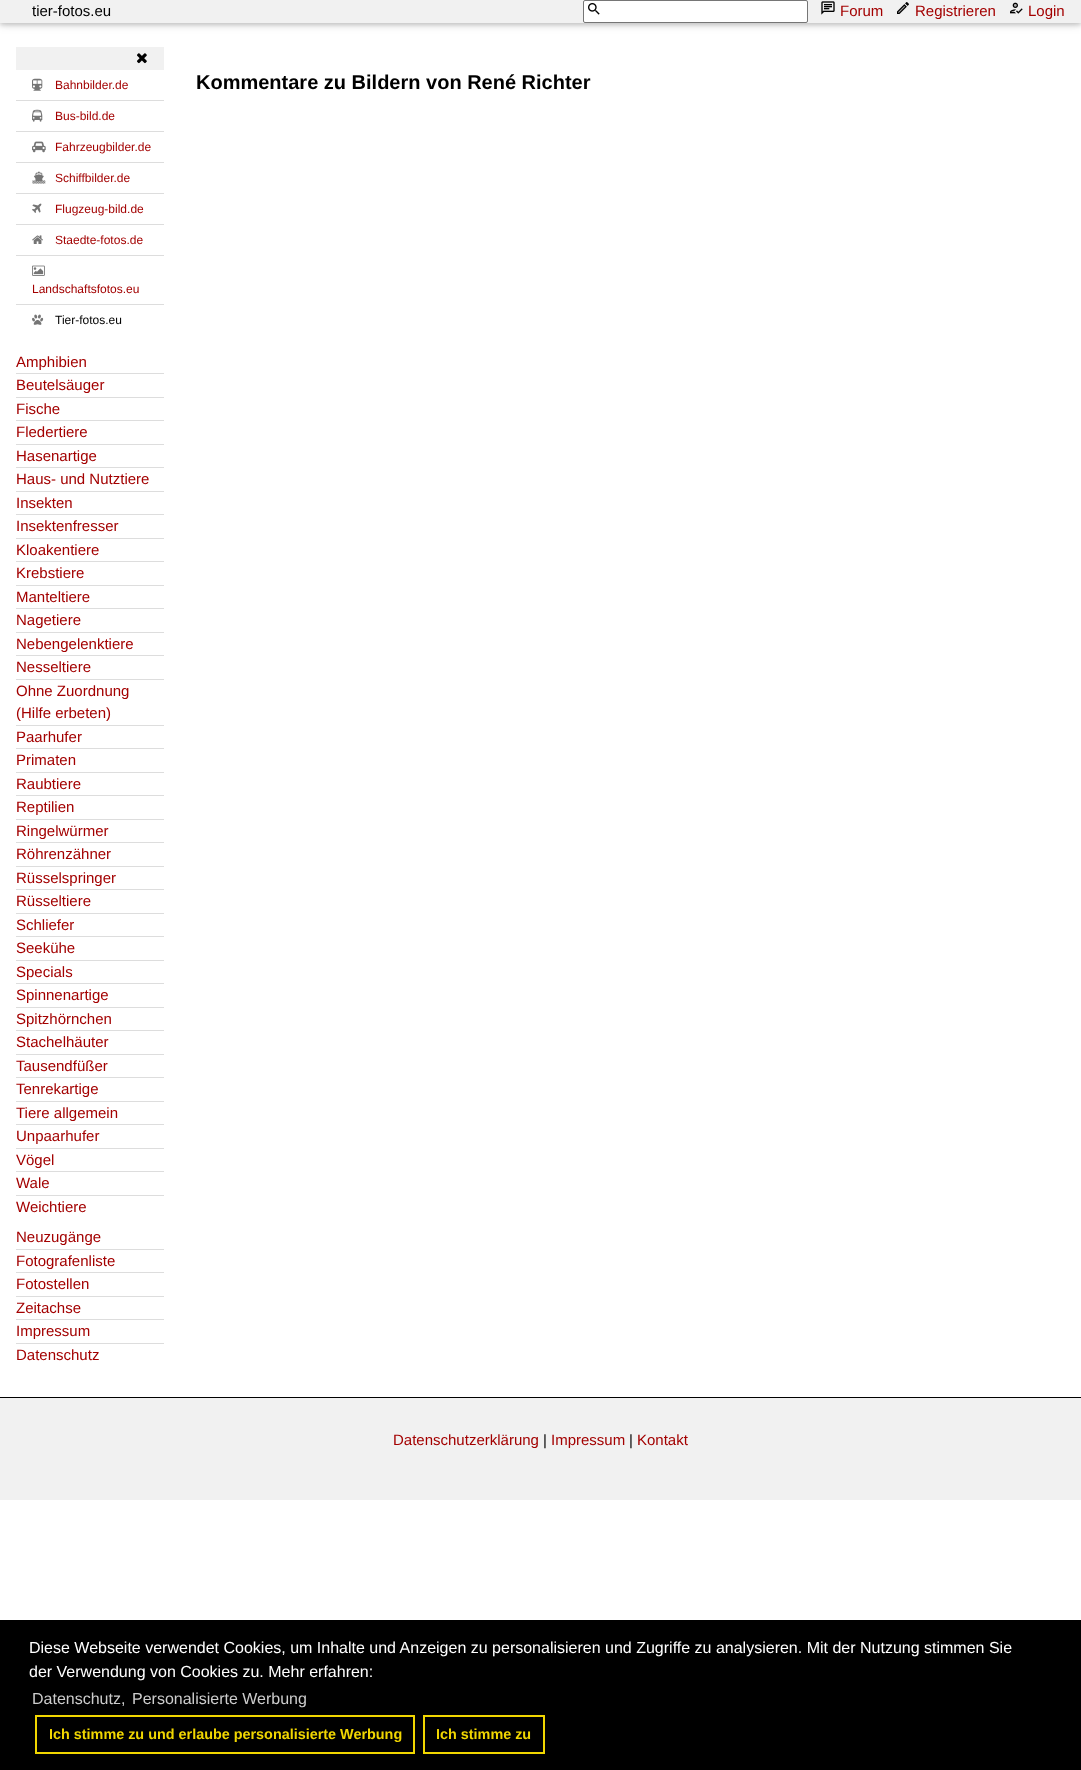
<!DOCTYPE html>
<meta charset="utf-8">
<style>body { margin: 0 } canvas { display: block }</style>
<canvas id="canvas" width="1081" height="1770"></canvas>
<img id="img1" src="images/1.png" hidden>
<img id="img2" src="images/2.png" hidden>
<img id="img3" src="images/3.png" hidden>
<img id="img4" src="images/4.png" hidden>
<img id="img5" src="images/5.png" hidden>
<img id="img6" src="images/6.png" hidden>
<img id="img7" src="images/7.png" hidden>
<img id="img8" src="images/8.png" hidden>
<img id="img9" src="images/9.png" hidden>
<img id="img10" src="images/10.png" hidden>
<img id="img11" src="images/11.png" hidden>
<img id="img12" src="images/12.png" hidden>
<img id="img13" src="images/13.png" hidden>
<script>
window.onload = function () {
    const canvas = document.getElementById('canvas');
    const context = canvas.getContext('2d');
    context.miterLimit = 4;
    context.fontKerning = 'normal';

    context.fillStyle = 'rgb(255, 255, 255)';
    context.fillRect(0, 0, 1081, 1770);
    context.fillStyle = 'rgba(0, 0, 0, 0.12)';
    context.filter = 'blur(5px)';
    context.beginPath();
    context.rect(0, 2, 1081, 23);
    context.fill();
    context.filter = 'none';
    context.fillStyle = 'rgba(0, 0, 0, 0.16)';
    context.filter = 'blur(2px)';
    context.beginPath();
    context.rect(0, 2, 1081, 23);
    context.fill();
    context.filter = 'none';
    context.fillStyle = 'rgb(241, 241, 241)';
    context.fillRect(0, 0, 1081, 23);
    context.fillStyle = 'rgb(255, 255, 255)';
    context.beginPath();
    context.roundRect(583.5, 0.5, 224, 22, 1.5);
    context.fill();
    context.strokeStyle = 'rgb(118, 118, 118)';
    context.stroke();
    context.drawImage(document.getElementById('img1'), 588, 3, 12, 12);
    context.drawImage(document.getElementById('img2'), 821, 1, 14, 14);
    context.drawImage(document.getElementById('img3'), 897, 2, 12, 12);
    context.drawImage(document.getElementById('img4'), 1010, 2, 13, 12);
    context.fillStyle = 'rgb(241, 241, 241)';
    context.fillRect(16, 47, 148, 23);
    context.drawImage(document.getElementById('img5'), 137, 53, 10, 11);
    context.fillStyle = 'rgb(221, 221, 221)';
    context.fillRect(16, 100, 148, 1);
    context.drawImage(document.getElementById('img6'), 32, 78, 11, 13);
    context.fillRect(16, 131, 148, 1);
    context.drawImage(document.getElementById('img7'), 32, 109, 11, 13);
    context.fillRect(16, 162, 148, 1);
    context.drawImage(document.getElementById('img8'), 32, 141, 14, 12);
    context.fillRect(16, 193, 148, 1);
    context.drawImage(document.getElementById('img9'), 32, 171, 14, 13);
    context.fillRect(16, 224, 148, 1);
    context.drawImage(document.getElementById('img10'), 32, 203, 10, 10);
    context.fillRect(16, 255, 148, 1);
    context.drawImage(document.getElementById('img11'), 32, 235, 11, 9);
    context.fillRect(16, 304, 148, 1);
    context.drawImage(document.getElementById('img12'), 32, 265, 13, 11);
    context.drawImage(document.getElementById('img13'), 32, 314, 12, 11);
    context.fillRect(16, 373, 148, 1);
    context.fillRect(16, 397, 148, 1);
    context.fillRect(16, 420, 148, 1);
    context.fillRect(16, 444, 148, 1);
    context.fillRect(16, 467, 148, 1);
    context.fillRect(16, 491, 148, 1);
    context.fillRect(16, 514, 148, 1);
    context.fillRect(16, 538, 148, 1);
    context.fillRect(16, 561, 148, 1);
    context.fillRect(16, 585, 148, 1);
    context.fillRect(16, 608, 148, 1);
    context.fillRect(16, 632, 148, 1);
    context.fillRect(16, 655, 148, 1);
    context.fillRect(16, 679, 148, 1);
    context.fillRect(16, 725, 148, 1);
    context.fillRect(16, 748, 148, 1);
    context.fillRect(16, 772, 148, 1);
    context.fillRect(16, 795, 148, 1);
    context.fillRect(16, 819, 148, 1);
    context.fillRect(16, 842, 148, 1);
    context.fillRect(16, 866, 148, 1);
    context.fillRect(16, 889, 148, 1);
    context.fillRect(16, 913, 148, 1);
    context.fillRect(16, 936, 148, 1);
    context.fillRect(16, 960, 148, 1);
    context.fillRect(16, 983, 148, 1);
    context.fillRect(16, 1007, 148, 1);
    context.fillRect(16, 1030, 148, 1);
    context.fillRect(16, 1054, 148, 1);
    context.fillRect(16, 1077, 148, 1);
    context.fillRect(16, 1101, 148, 1);
    context.fillRect(16, 1124, 148, 1);
    context.fillRect(16, 1148, 148, 1);
    context.fillRect(16, 1171, 148, 1);
    context.fillRect(16, 1195, 148, 1);
    context.fillRect(16, 1249, 148, 1);
    context.fillRect(16, 1272, 148, 1);
    context.fillRect(16, 1296, 148, 1);
    context.fillRect(16, 1319, 148, 1);
    context.fillRect(16, 1343, 148, 1);
    context.fillStyle = 'rgb(241, 241, 241)';
    context.fillRect(0, 1398, 1081, 102);
    context.fillStyle = 'rgb(0, 0, 0)';
    context.fillRect(0, 1397, 1081, 1);
    context.fillRect(0, 1620, 1081, 150);
    context.strokeStyle = 'rgb(241, 214, 0)';
    context.lineWidth = 2;
    context.strokeRect(36, 1716, 378, 37);
    context.strokeRect(424, 1716, 120, 37);
    context.font = '15px Liberation Sans';
    context.fillText('tier-fotos.eu', 32, 16);
    context.fillStyle = 'rgb(163, 0, 0)';
    context.fillText('Forum', 840, 16);
    context.fillText('Registrieren', 915, 16);
    context.fillText('Login', 1028, 16);
    context.font = '12px Liberation Sans';
    context.fillText('Bahnbilder.de', 55, 89);
    context.fillText('Bus-bild.de', 55, 120);
    context.fillText('Fahrzeugbilder.de', 55, 151);
    context.fillText('Schiffbilder.de', 55, 182);
    context.fillText('Flugzeug-bild.de', 55, 213);
    context.fillText('Staedte-fotos.de', 55, 244);
    context.fillText('Landschaftsfotos.eu', 32, 293);
    context.fillStyle = 'rgb(0, 0, 0)';
    context.fillText('Tier-fotos.eu', 55, 324);
    context.font = '15px Liberation Sans';
    context.fillStyle = 'rgb(163, 0, 0)';
    context.fillText('Amphibien', 16, 367);
    context.fillText('Beutelsäuger', 16, 390);
    context.fillText('Fische', 16, 414);
    context.fillText('Fledertiere', 16, 437);
    context.fillText('Hasenartige', 16, 461);
    context.fillText('Haus- und Nutztiere', 16, 484);
    context.fillText('Insekten', 16, 508);
    context.fillText('Insektenfresser', 16, 531);
    context.fillText('Kloakentiere', 16, 555);
    context.fillText('Krebstiere', 16, 578);
    context.fillText('Manteltiere', 16, 602);
    context.fillText('Nagetiere', 16, 625);
    context.fillText('Nebengelenktiere', 16, 649);
    context.fillText('Nesseltiere', 16, 672);
    context.fillText('Ohne Zuordnung', 16, 696);
    context.fillText('(Hilfe erbeten)', 16, 718);
    context.fillText('Paarhufer', 16, 742);
    context.fillText('Primaten', 16, 765);
    context.fillText('Raubtiere', 16, 789);
    context.fillText('Reptilien', 16, 812);
    context.fillText('Ringelwürmer', 16, 836);
    context.fillText('Röhrenzähner', 16, 859);
    context.fillText('Rüsselspringer', 16, 883);
    context.fillText('Rüsseltiere', 16, 906);
    context.fillText('Schliefer', 16, 930);
    context.fillText('Seekühe', 16, 953);
    context.fillText('Specials', 16, 977);
    context.fillText('Spinnenartige', 16, 1000);
    context.fillText('Spitzhörnchen', 16, 1024);
    context.fillText('Stachelhäuter', 16, 1047);
    context.fillText('Tausendfüßer', 16, 1071);
    context.fillText('Tenrekartige', 16, 1094);
    context.fillText('Tiere allgemein', 16, 1118);
    context.fillText('Unpaarhufer', 16, 1141);
    context.fillText('Vögel', 16, 1165);
    context.fillText('Wale', 16, 1188);
    context.fillText('Weichtiere', 16, 1212);
    context.fillText('Neuzugänge', 16, 1242);
    context.fillText('Fotografenliste', 16, 1266);
    context.fillText('Fotostellen', 16, 1289);
    context.fillText('Zeitachse', 16, 1313);
    context.fillText('Impressum', 16, 1336);
    context.fillText('Datenschutz', 16, 1360);
    context.font = 'bold 20px Liberation Sans';
    context.fillStyle = 'rgb(0, 0, 0)';
    context.fillText('Kommentare zu Bildern von René Richter', 196, 89);
    context.font = '15px Liberation Sans';
    context.fillStyle = 'rgb(163, 0, 0)';
    context.fillText('Datenschutzerklärung', 393, 1445);
    context.fillStyle = 'rgb(0, 0, 0)';
    context.fillText('|', 543, 1445);
    context.fillStyle = 'rgb(163, 0, 0)';
    context.fillText('Impressum', 551, 1445);
    context.fillStyle = 'rgb(0, 0, 0)';
    context.fillText('|', 629, 1445);
    context.fillStyle = 'rgb(163, 0, 0)';
    context.fillText('Kontakt', 637, 1445);
    context.font = '16px Liberation Sans';
    context.fillStyle = 'rgb(255, 255, 255)';
    context.fillText('Diese Webseite verwendet Cookies, um Inhalte und Anzeigen zu personalisieren und Zugriffe zu analysieren. Mit der Nutzung stimmen Sie', 29, 1653);
    context.fillText('der Verwendung von Cookies zu. Mehr erfahren:', 29, 1677);
    context.fillStyle = 'rgb(204, 204, 204)';
    context.fillText('Datenschutz,', 32, 1704);
    context.fillText('Personalisierte Werbung', 132, 1704);
    context.font = 'bold 14.4px Liberation Sans';
    context.fillStyle = 'rgb(241, 214, 0)';
    context.fillText('Ich stimme zu und erlaube personalisierte Werbung', 49, 1739);
    context.fillText('Ich stimme zu', 436, 1739);
};
</script>
